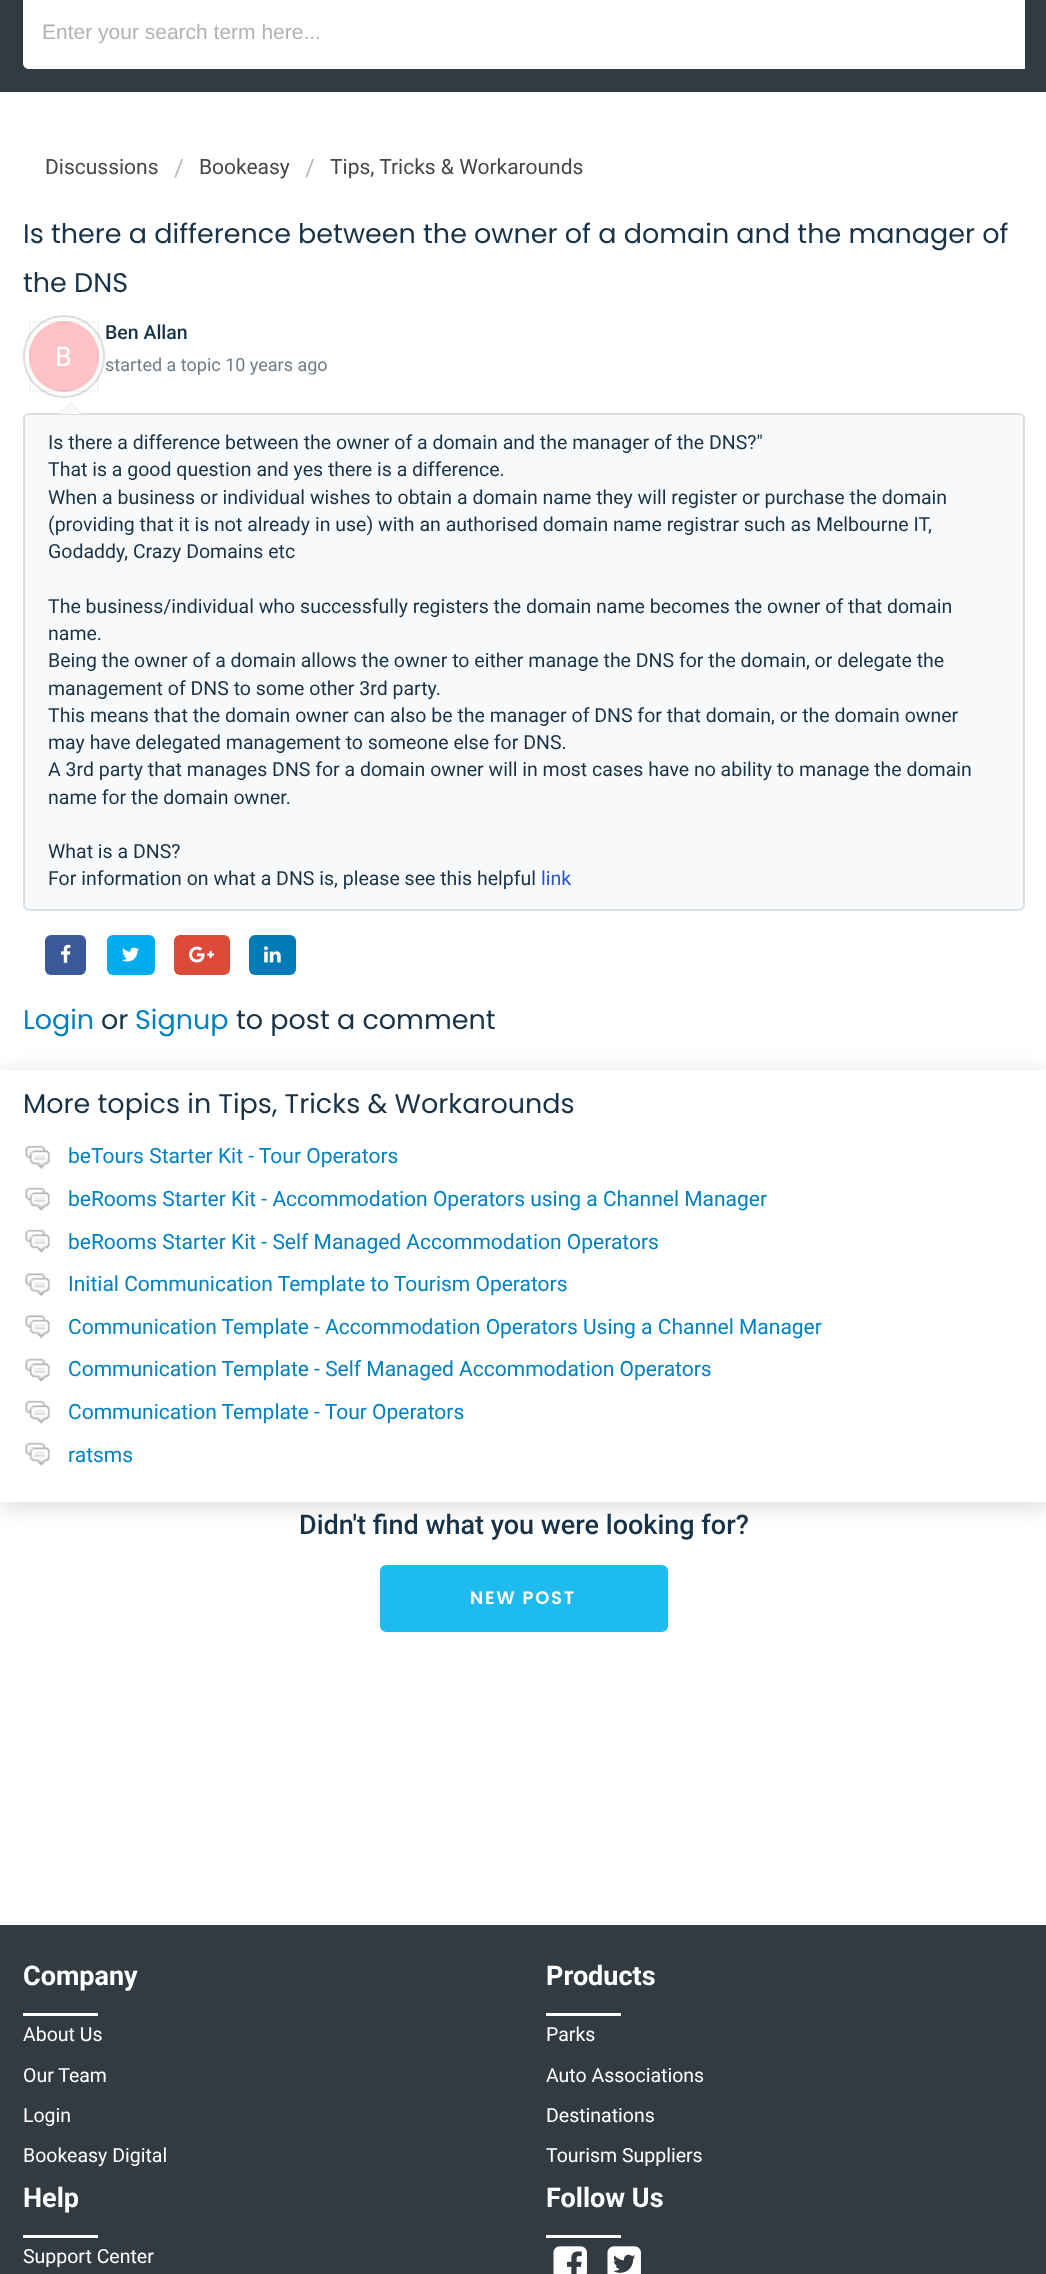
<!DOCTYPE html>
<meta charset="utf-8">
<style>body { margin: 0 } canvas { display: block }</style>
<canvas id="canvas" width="1046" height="2274"></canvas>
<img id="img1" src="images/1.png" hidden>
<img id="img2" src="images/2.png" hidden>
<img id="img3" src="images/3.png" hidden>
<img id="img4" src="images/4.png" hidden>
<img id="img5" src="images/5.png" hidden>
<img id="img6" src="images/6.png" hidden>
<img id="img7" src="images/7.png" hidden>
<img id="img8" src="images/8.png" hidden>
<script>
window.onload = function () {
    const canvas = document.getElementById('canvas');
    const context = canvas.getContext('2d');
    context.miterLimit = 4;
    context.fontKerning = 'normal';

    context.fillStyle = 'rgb(255, 255, 255)';
    context.fillRect(0, 0, 1046, 2274);
    context.fillStyle = 'rgb(50, 58, 66)';
    context.fillRect(0, 0, 1046, 92);
    context.fillStyle = 'rgb(255, 255, 255)';
    context.beginPath();
    context.moveTo(29, -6);
    context.lineTo(1025, -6);
    context.lineTo(1025, 69);
    context.lineTo(29, 69);
    context.bezierCurveTo(25.5, 69, 23, 66.5, 23, 63);
    context.lineTo(23, 0);
    context.bezierCurveTo(23, -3.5, 25.5, -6, 29, -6);
    context.closePath();
    context.fill();
    context.beginPath();
    context.roundRect(24, 316, 80, 81, 40);
    context.strokeStyle = 'rgb(221, 221, 221)';
    context.lineWidth = 2;
    context.stroke();
    context.fillStyle = 'rgb(255, 194, 198)';
    context.beginPath();
    context.roundRect(29, 321, 70, 71, 35);
    context.fill();
    context.strokeStyle = 'rgba(0, 0, 0, 0.04)';
    context.strokeRect(30, 322, 68, 69);
    context.fillStyle = 'rgb(248, 249, 250)';
    context.beginPath();
    context.roundRect(24, 414, 1000, 496, 5);
    context.fill();
    context.strokeStyle = 'rgb(218, 223, 227)';
    context.stroke();
    context.fillStyle = 'rgb(235, 235, 235)';
    context.beginPath();
    context.moveTo(82.5, 414);
    context.lineTo(58.5, 414);
    context.lineTo(70.5, 402);
    context.closePath();
    context.fill();
    context.fillStyle = 'rgb(250, 250, 250)';
    context.beginPath();
    context.moveTo(81, 414);
    context.lineTo(60, 414);
    context.lineTo(70.5, 403.5);
    context.closePath();
    context.fill();
    context.fillStyle = 'rgb(59, 89, 152)';
    context.beginPath();
    context.roundRect(45, 935, 41, 40, 6);
    context.fill();
    context.drawImage(document.getElementById('img1'), 61, 944, 10, 19);
    context.fillStyle = 'rgb(0, 172, 237)';
    context.beginPath();
    context.roundRect(107, 935, 48, 40, 6);
    context.fill();
    context.drawImage(document.getElementById('img2'), 122, 947, 17, 15);
    context.fillStyle = 'rgb(221, 74, 58)';
    context.beginPath();
    context.roundRect(174, 935, 56, 40, 6);
    context.fill();
    context.drawImage(document.getElementById('img3'), 189, 946, 26, 17);
    context.fillStyle = 'rgb(0, 123, 182)';
    context.beginPath();
    context.roundRect(249, 935, 47, 40, 6);
    context.fill();
    context.drawImage(document.getElementById('img4'), 264, 946, 17, 17);
    context.save();
    context.beginPath();
    context.moveTo(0, 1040);
    context.lineTo(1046, 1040);
    context.lineTo(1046, 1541);
    context.lineTo(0, 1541);
    context.closePath();
    context.moveTo(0, 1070);
    context.lineTo(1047, 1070);
    context.lineTo(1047, 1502);
    context.lineTo(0, 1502);
    context.closePath();
    context.clip('evenodd');
    context.fillStyle = 'rgb(222, 222, 222)';
    context.filter = 'blur(10.5px)';
    context.beginPath();
    context.rect(0, 1073, 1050, 435);
    context.fill();
    context.filter = 'none';
    context.restore();
    context.drawImage(document.getElementById('img5'), 25, 1145, 25, 24);
    context.drawImage(document.getElementById('img5'), 25, 1187, 25, 24);
    context.drawImage(document.getElementById('img5'), 25, 1229, 25, 24);
    context.drawImage(document.getElementById('img6'), 25, 1273, 25, 24);
    context.drawImage(document.getElementById('img6'), 25, 1315, 25, 24);
    context.drawImage(document.getElementById('img5'), 25, 1358, 25, 24);
    context.drawImage(document.getElementById('img5'), 25, 1400, 25, 24);
    context.drawImage(document.getElementById('img5'), 25, 1442, 25, 24);
    context.fillStyle = 'rgb(30, 188, 238)';
    context.beginPath();
    context.roundRect(381, 1566, 286, 65, 5);
    context.fill();
    context.strokeStyle = 'rgb(30, 188, 238)';
    context.stroke();
    context.fillStyle = 'rgb(50, 58, 66)';
    context.fillRect(0, 1925, 1046, 349);
    context.fillStyle = 'rgb(255, 255, 255)';
    context.fillRect(23, 2013, 75, 3);
    context.fillRect(546, 2013, 75, 3);
    context.fillRect(23, 2235, 75, 3);
    context.fillRect(546, 2235, 75, 3);
    context.drawImage(document.getElementById('img7'), 553, 2246, 34, 28);
    context.drawImage(document.getElementById('img8'), 607, 2246, 34, 28);
    context.font = '21px Liberation Sans';
    context.fillStyle = 'rgb(178, 178, 178)';
    context.fillText('Enter your search term here...', 42, 39);
    context.font = '21px Roboto';
    context.fillStyle = 'rgb(69, 71, 72)';
    context.fillText('Discussions', 45, 174);
    context.font = '24px Roboto';
    context.fillStyle = 'rgb(187, 187, 187)';
    context.fillText('/', 174, 176);
    context.font = '21px Roboto';
    context.fillStyle = 'rgb(69, 71, 72)';
    context.fillText('Bookeasy', 199, 174);
    context.font = '24px Roboto';
    context.fillStyle = 'rgb(187, 187, 187)';
    context.fillText('/', 305, 176);
    context.font = '21px Roboto';
    context.fillStyle = 'rgb(69, 71, 72)';
    context.fillText('Tips, Tricks & Workarounds', 330, 174);
    context.font = '27px Poppins';
    context.fillStyle = 'rgb(24, 50, 71)';
    context.fillText('Is there a difference between the owner of a domain and the manager of', 23, 243);
    context.fillText('the DNS', 23, 292);
    context.font = '27px Roboto';
    context.fillStyle = 'rgb(255, 255, 255)';
    context.fillText('B', 55, 366);
    context.font = '500 19.5px Roboto';
    context.fillStyle = 'rgb(24, 50, 71)';
    context.fillText('Ben Allan', 105, 339);
    context.font = '18px Roboto';
    context.fillStyle = 'rgb(111, 124, 135)';
    context.fillText('started a topic 10 years ago', 105, 371);
    context.font = '19.5px Roboto';
    context.fillStyle = 'rgb(24, 50, 71)';
    context.fillText('Is there a difference between the owner of a domain and the manager of the DNS?"', 48, 449);
    context.fillText('That is a good question and yes there is a difference.', 48, 476);
    context.fillText('When a business or individual wishes to obtain a domain name they will register or purchase the domain', 48, 504);
    context.fillText('(providing that it is not already in use) with an authorised domain name registrar such as Melbourne IT,', 48, 531);
    context.fillText('Godaddy, Crazy Domains etc', 48, 558);
    context.fillText('The business/individual who successfully registers the domain name becomes the owner of that domain', 48, 613);
    context.fillText('name.', 48, 640);
    context.fillText('Being the owner of a domain allows the owner to either manage the DNS for the domain, or delegate the', 48, 667);
    context.fillText('management of DNS to some other 3rd party.', 48, 695);
    context.fillText('This means that the domain owner can also be the manager of DNS for that domain, or the domain owner', 48, 722);
    context.fillText('may have delegated management to someone else for DNS.', 48, 749);
    context.fillText('A 3rd party that manages DNS for a domain owner will in most cases have no ability to manage the domain', 48, 776);
    context.fillText('name for the domain owner.', 48, 804);
    context.fillText('What is a DNS?', 48, 858);
    context.fillText('For information on what a DNS is, please see this helpful', 48, 885);
    context.fillStyle = 'rgb(39, 83, 215)';
    context.fillText('link', 541, 885);
    context.font = '27px Poppins';
    context.fillStyle = 'rgb(0, 129, 193)';
    context.fillText('Login', 23, 1029);
    context.fillStyle = 'rgb(24, 50, 71)';
    context.fillText('or', 101, 1029);
    context.fillStyle = 'rgb(0, 129, 193)';
    context.fillText('Signup', 135, 1029);
    context.fillStyle = 'rgb(24, 50, 71)';
    context.fillText('to post a comment', 236, 1029);
    context.fillText('More topics in Tips, Tricks & Workarounds', 23, 1113);
    context.font = '21px Roboto';
    context.fillStyle = 'rgb(0, 129, 193)';
    context.fillText('beTours Starter Kit - Tour Operators', 68, 1163);
    context.fillText('beRooms Starter Kit - Accommodation Operators using a Channel Manager', 68, 1206);
    context.fillText('beRooms Starter Kit - Self Managed Accommodation Operators', 68, 1249);
    context.fillText('Initial Communication Template to Tourism Operators', 68, 1291);
    context.fillText('Communication Template - Accommodation Operators Using a Channel Manager', 68, 1334);
    context.fillText('Communication Template - Self Managed Accommodation Operators', 68, 1376);
    context.fillText('Communication Template - Tour Operators', 68, 1419);
    context.fillText('ratsms', 68, 1462);
    context.font = '500 27px Roboto';
    context.fillStyle = 'rgb(24, 50, 71)';
    context.fillText('Didn\'t find what you were looking for?', 299, 1534);
    context.letterSpacing = '1.75px';
    context.font = '600 18px Poppins';
    context.fillStyle = 'rgb(255, 255, 255)';
    context.fillText('NEW POST', 470, 1604);
    context.letterSpacing = '0px';
    context.font = 'bold 27px Roboto';
    context.fillText('Company', 23, 1985);
    context.font = '19.5px Roboto';
    context.fillText('About Us', 23, 2041);
    context.fillText('Our Team', 23, 2082);
    context.fillText('Login', 23, 2122);
    context.fillText('Bookeasy Digital', 23, 2162);
    context.font = 'bold 27px Roboto';
    context.fillText('Products', 546, 1985);
    context.font = '19.5px Roboto';
    context.fillText('Parks', 546, 2041);
    context.fillText('Auto Associations', 546, 2082);
    context.fillText('Destinations', 546, 2122);
    context.fillText('Tourism Suppliers', 546, 2162);
    context.font = 'bold 27px Roboto';
    context.fillText('Help', 23, 2207);
    context.font = '19.5px Roboto';
    context.fillText('Support Center', 23, 2263);
    context.font = 'bold 27px Roboto';
    context.fillText('Follow Us', 546, 2207);
};
</script>
